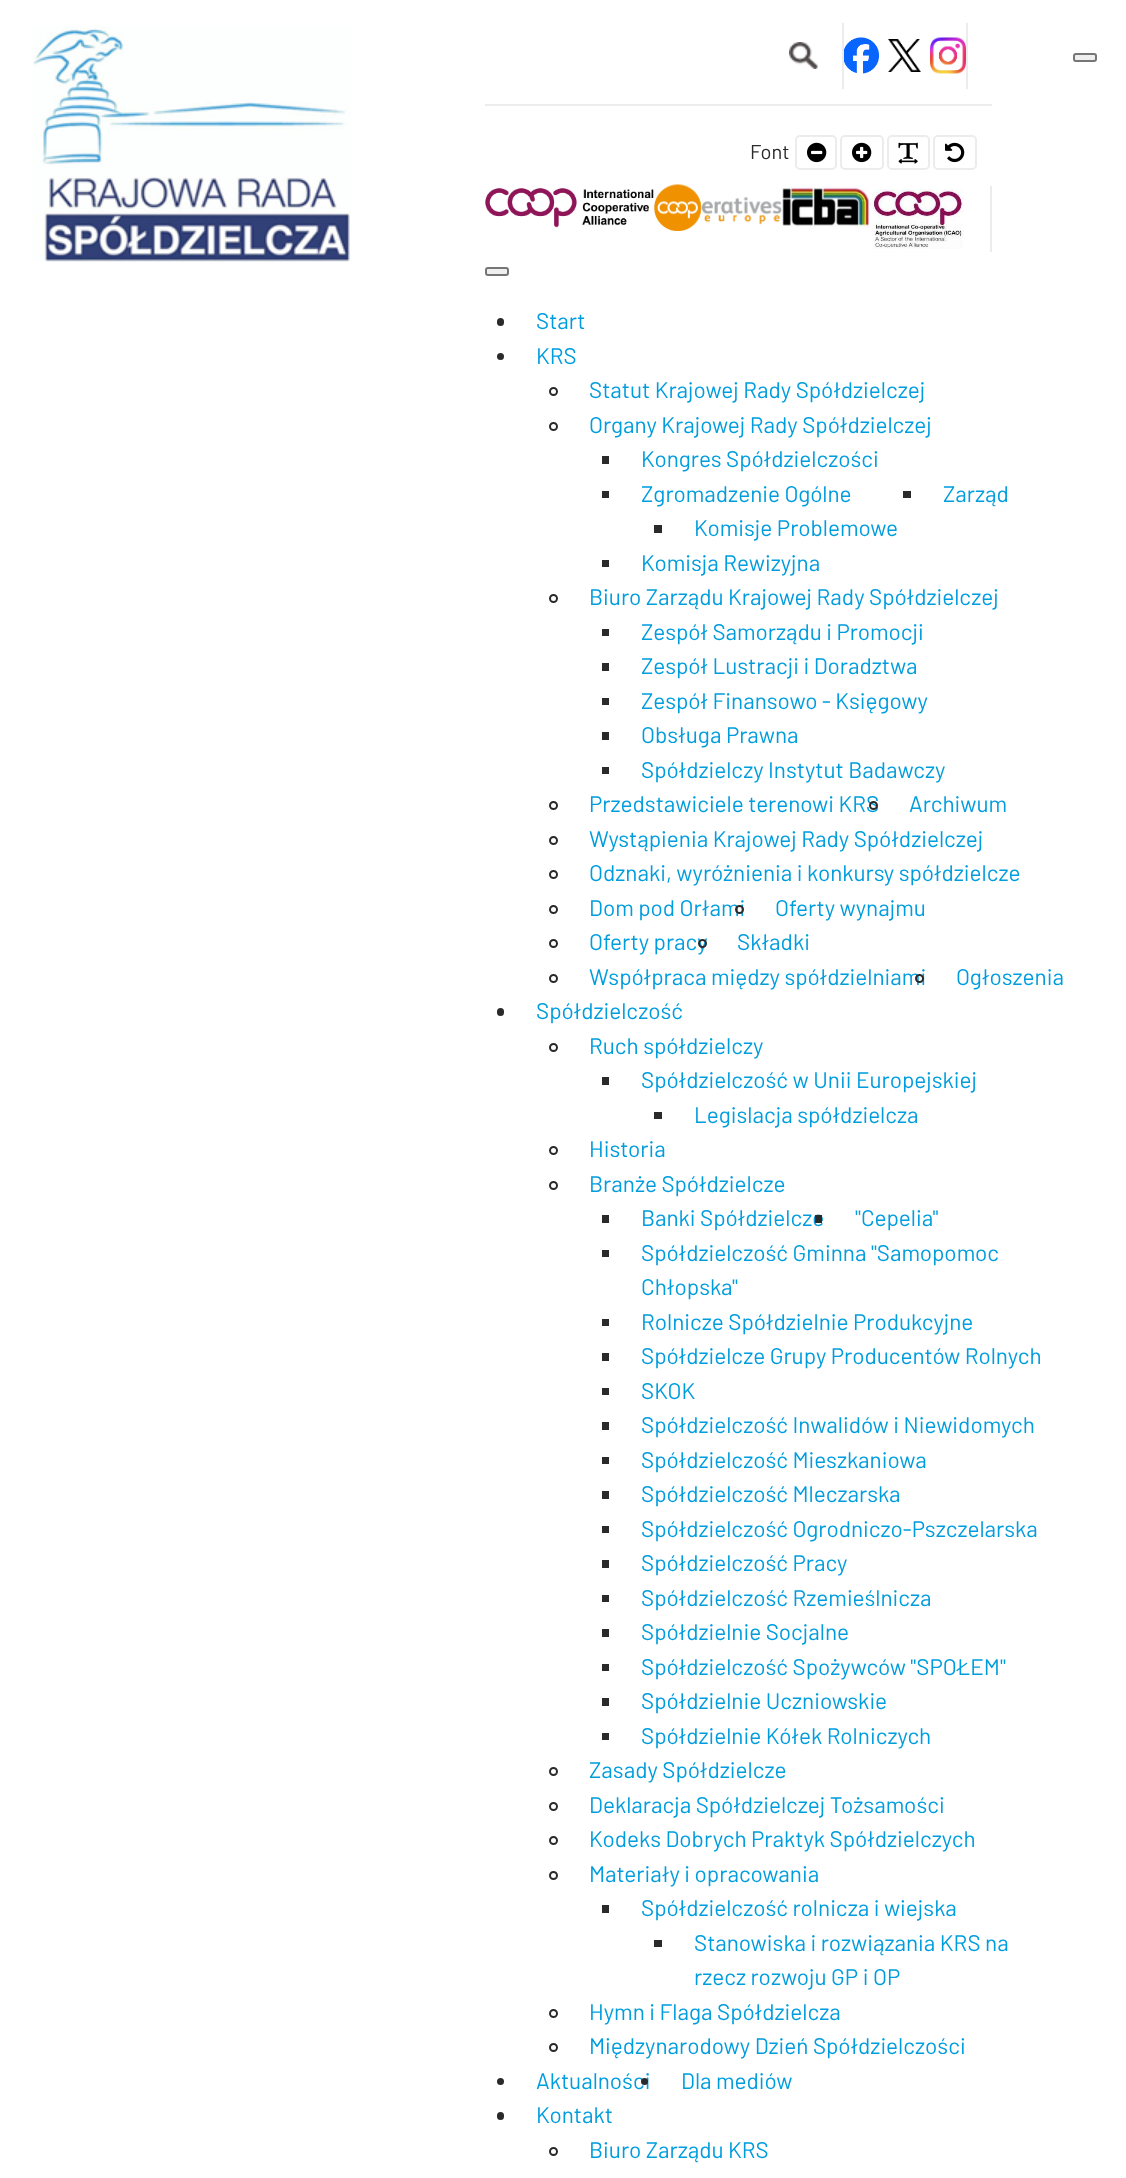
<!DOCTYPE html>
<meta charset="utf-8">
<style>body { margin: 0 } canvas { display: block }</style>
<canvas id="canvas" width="1126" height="2178"></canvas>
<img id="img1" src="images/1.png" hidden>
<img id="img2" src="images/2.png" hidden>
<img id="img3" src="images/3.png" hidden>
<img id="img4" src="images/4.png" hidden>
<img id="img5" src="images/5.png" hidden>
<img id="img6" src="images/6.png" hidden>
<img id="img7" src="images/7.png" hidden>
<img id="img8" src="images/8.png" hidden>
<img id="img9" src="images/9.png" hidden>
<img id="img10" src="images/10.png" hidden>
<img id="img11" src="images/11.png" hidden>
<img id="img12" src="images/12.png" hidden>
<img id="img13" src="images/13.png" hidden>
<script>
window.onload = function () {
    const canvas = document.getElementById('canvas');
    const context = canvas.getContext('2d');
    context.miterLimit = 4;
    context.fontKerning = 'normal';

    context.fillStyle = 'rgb(255, 255, 255)';
    context.fillRect(0, 0, 1126, 2178);
    context.drawImage(document.getElementById('img1'), 33, 26, 318, 236);
    context.fillStyle = 'rgb(236, 236, 236)';
    context.fillRect(842, 23, 2, 66);
    context.drawImage(document.getElementById('img2'), 789, 42, 29, 27);
    context.fillRect(966, 23, 2, 66);
    context.drawImage(document.getElementById('img3'), 844, 37, 35, 37);
    context.drawImage(document.getElementById('img4'), 888, 39, 33, 33);
    context.drawImage(document.getElementById('img5'), 930, 37, 36, 37);
    context.fillRect(485, 104, 507, 2);
    context.beginPath();
    context.roundRect(796, 136, 40, 33, 4);
    context.strokeStyle = 'rgb(236, 236, 236)';
    context.lineWidth = 2;
    context.stroke();
    context.drawImage(document.getElementById('img6'), 807, 142, 20, 21);
    context.beginPath();
    context.roundRect(841, 136, 42, 33, 4);
    context.stroke();
    context.drawImage(document.getElementById('img7'), 852, 142, 20, 21);
    context.beginPath();
    context.roundRect(888, 136, 41, 33, 4);
    context.stroke();
    context.drawImage(document.getElementById('img8'), 898, 142, 20, 22);
    context.beginPath();
    context.roundRect(934, 136, 42, 33, 4);
    context.stroke();
    context.drawImage(document.getElementById('img9'), 945, 142, 20, 21);
    context.fillRect(990, 186, 2, 66);
    context.drawImage(document.getElementById('img10'), 485, 188, 169, 40);
    context.drawImage(document.getElementById('img11'), 654, 184, 128, 47);
    context.drawImage(document.getElementById('img12'), 781, 186, 89, 43);
    context.drawImage(document.getElementById('img13'), 870, 189, 94, 60);
    context.fillStyle = 'rgb(239, 239, 239)';
    context.beginPath();
    context.roundRect(1074, 54, 22, 7, 2);
    context.fill();
    context.strokeStyle = 'rgb(118, 118, 118)';
    context.stroke();
    context.beginPath();
    context.roundRect(486, 268, 22, 7, 2);
    context.fill();
    context.stroke();
    context.fillStyle = 'rgb(42, 42, 42)';
    context.beginPath();
    context.roundRect(497, 318, 7, 8, 3.5);
    context.fill();
    context.beginPath();
    context.arc(500.5, 356.5, 3.5, 0, 2 * Math.PI);
    context.fill();
    context.beginPath();
    context.arc(553.5, 391.5, 3.5, 0, 2 * Math.PI);
    context.strokeStyle = 'rgb(42, 42, 42)';
    context.stroke();
    context.beginPath();
    context.arc(553.5, 426.5, 3.5, 0, 2 * Math.PI);
    context.stroke();
    context.fillRect(602, 456, 7, 8);
    context.fillRect(602, 491, 7, 7);
    context.fillRect(654, 525, 8, 8);
    context.fillRect(903, 491, 8, 7);
    context.fillRect(602, 560, 7, 7);
    context.beginPath();
    context.arc(553.5, 598.5, 3.5, 0, 2 * Math.PI);
    context.stroke();
    context.fillRect(602, 629, 7, 7);
    context.fillRect(602, 663, 7, 8);
    context.fillRect(602, 698, 7, 7);
    context.fillRect(602, 732, 7, 8);
    context.fillRect(602, 767, 7, 7);
    context.beginPath();
    context.arc(553.5, 805.5, 3.5, 0, 2 * Math.PI);
    context.stroke();
    context.beginPath();
    context.arc(553.5, 840.5, 3.5, 0, 2 * Math.PI);
    context.stroke();
    context.beginPath();
    context.arc(553.5, 874.5, 3.5, 0, 2 * Math.PI);
    context.stroke();
    context.beginPath();
    context.arc(553.5, 909.5, 3.5, 0, 2 * Math.PI);
    context.stroke();
    context.beginPath();
    context.arc(553.5, 943.5, 3.5, 0, 2 * Math.PI);
    context.stroke();
    context.beginPath();
    context.arc(553.5, 978.5, 3.5, 0, 2 * Math.PI);
    context.stroke();
    context.beginPath();
    context.roundRect(497, 1008, 7, 8, 3.5);
    context.fill();
    context.beginPath();
    context.arc(553.5, 1047.5, 3.5, 0, 2 * Math.PI);
    context.stroke();
    context.fillRect(602, 1077, 7, 8);
    context.fillRect(654, 1112, 8, 7);
    context.beginPath();
    context.arc(553.5, 1150.5, 3.5, 0, 2 * Math.PI);
    context.stroke();
    context.beginPath();
    context.arc(553.5, 1185.5, 3.5, 0, 2 * Math.PI);
    context.stroke();
    context.fillRect(602, 1215, 7, 8);
    context.fillRect(602, 1250, 7, 7);
    context.fillRect(602, 1319, 7, 7);
    context.fillRect(602, 1353, 7, 8);
    context.fillRect(602, 1388, 7, 7);
    context.fillRect(602, 1422, 7, 8);
    context.fillRect(602, 1457, 7, 7);
    context.fillRect(602, 1491, 7, 8);
    context.fillRect(602, 1526, 7, 7);
    context.fillRect(602, 1560, 7, 8);
    context.fillRect(602, 1595, 7, 7);
    context.fillRect(602, 1629, 7, 8);
    context.fillRect(602, 1664, 7, 7);
    context.fillRect(602, 1698, 7, 8);
    context.fillRect(602, 1733, 7, 7);
    context.beginPath();
    context.arc(553.5, 1771.5, 3.5, 0, 2 * Math.PI);
    context.stroke();
    context.beginPath();
    context.arc(553.5, 1806.5, 3.5, 0, 2 * Math.PI);
    context.stroke();
    context.beginPath();
    context.arc(553.5, 1840.5, 3.5, 0, 2 * Math.PI);
    context.stroke();
    context.beginPath();
    context.arc(553.5, 1875.5, 3.5, 0, 2 * Math.PI);
    context.stroke();
    context.fillRect(602, 1905, 7, 8);
    context.fillRect(654, 1940, 8, 7);
    context.beginPath();
    context.arc(553.5, 2013.5, 3.5, 0, 2 * Math.PI);
    context.stroke();
    context.beginPath();
    context.arc(553.5, 2047.5, 3.5, 0, 2 * Math.PI);
    context.stroke();
    context.beginPath();
    context.arc(500.5, 2081.5, 3.5, 0, 2 * Math.PI);
    context.fill();
    context.beginPath();
    context.roundRect(497, 2112, 7, 8, 3.5);
    context.fill();
    context.beginPath();
    context.arc(553.5, 2151.5, 3.5, 0, 2 * Math.PI);
    context.stroke();
    context.font = '20px Barlow';
    context.fillText('Font', 750, 159);
    context.font = '22.5px Barlow';
    context.fillStyle = 'rgb(0, 157, 222)';
    context.fillText('Start', 536, 329);
    context.fillText('KRS', 536, 364);
    context.fillText('Statut Krajowej Rady Spółdzielczej', 589, 398);
    context.fillText('Organy Krajowej Rady Spółdzielczej', 589, 433);
    context.fillText('Kongres Spółdzielczości', 641, 467);
    context.fillText('Zgromadzenie Ogólne', 641, 502);
    context.fillText('Komisje Problemowe', 694, 536);
    context.fillText('Zarząd', 943, 502);
    context.fillText('Komisja Rewizyjna', 641, 571);
    context.fillText('Biuro Zarządu Krajowej Rady Spółdzielczej', 589, 605);
    context.fillText('Zespół Samorządu i Promocji', 641, 640);
    context.fillText('Zespół Lustracji i Doradztwa', 641, 674);
    context.fillText('Zespół Finansowo - Księgowy', 641, 709);
    context.fillText('Obsługa Prawna', 641, 743);
    context.fillText('Spółdzielczy Instytut Badawczy', 641, 778);
    context.fillText('Przedstawiciele terenowi KRS', 589, 812);
    context.beginPath();
    context.arc(873.5, 805.5, 3.5, 0, 2 * Math.PI);
    context.stroke();
    context.fillText('Archiwum', 909, 812);
    context.fillText('Wystąpienia Krajowej Rady Spółdzielczej', 589, 847);
    context.fillText('Odznaki, wyróżnienia i konkursy spółdzielcze', 589, 881);
    context.fillText('Dom pod Orłami', 589, 916);
    context.beginPath();
    context.arc(739.5, 909.5, 3.5, 0, 2 * Math.PI);
    context.stroke();
    context.fillText('Oferty wynajmu', 775, 916);
    context.fillText('Oferty pracy', 589, 950);
    context.beginPath();
    context.arc(702.5, 943.5, 3.5, 0, 2 * Math.PI);
    context.stroke();
    context.fillText('Składki', 737, 950);
    context.fillText('Współpraca między spółdzielniami', 589, 985);
    context.beginPath();
    context.arc(919.5, 978.5, 3.5, 0, 2 * Math.PI);
    context.stroke();
    context.fillText('Ogłoszenia', 956, 985);
    context.fillText('Spółdzielczość', 536, 1019);
    context.fillText('Ruch spółdzielczy', 589, 1054);
    context.fillText('Spółdzielczość w Unii Europejskiej', 641, 1088);
    context.fillText('Legislacja spółdzielcza', 694, 1123);
    context.fillText('Historia', 589, 1157);
    context.fillText('Branże Spółdzielcze', 589, 1192);
    context.fillText('Banki Spółdzielcze', 641, 1226);
    context.fillStyle = 'rgb(42, 42, 42)';
    context.fillRect(815, 1215, 7, 8);
    context.fillStyle = 'rgb(0, 157, 222)';
    context.fillText('"Cepelia"', 855, 1226);
    context.fillText('Spółdzielczość Gminna "Samopomoc', 641, 1261);
    context.fillText('Chłopska"', 641, 1295);
    context.fillText('Rolnicze Spółdzielnie Produkcyjne', 641, 1330);
    context.fillText('Spółdzielcze Grupy Producentów Rolnych', 641, 1364);
    context.fillText('SKOK', 641, 1399);
    context.fillText('Spółdzielczość Inwalidów i Niewidomych', 641, 1433);
    context.fillText('Spółdzielczość Mieszkaniowa', 641, 1468);
    context.fillText('Spółdzielczość Mleczarska', 641, 1502);
    context.fillText('Spółdzielczość Ogrodniczo-Pszczelarska', 641, 1537);
    context.fillText('Spółdzielczość Pracy', 641, 1571);
    context.fillText('Spółdzielczość Rzemieślnicza', 641, 1606);
    context.fillText('Spółdzielnie Socjalne', 641, 1640);
    context.fillText('Spółdzielczość Spożywców "SPOŁEM"', 641, 1675);
    context.fillText('Spółdzielnie Uczniowskie', 641, 1709);
    context.fillText('Spółdzielnie Kółek Rolniczych', 641, 1744);
    context.fillText('Zasady Spółdzielcze', 589, 1778);
    context.fillText('Deklaracja Spółdzielczej Tożsamości', 589, 1813);
    context.fillText('Kodeks Dobrych Praktyk Spółdzielczych', 589, 1847);
    context.fillText('Materiały i opracowania', 589, 1882);
    context.fillText('Spółdzielczość rolnicza i wiejska', 641, 1916);
    context.fillText('Stanowiska i rozwiązania KRS na', 694, 1951);
    context.fillText('rzecz rozwoju GP i OP', 694, 1985);
    context.fillText('Hymn i Flaga Spółdzielcza', 589, 2020);
    context.fillText('Międzynarodowy Dzień Spółdzielczości', 589, 2054);
    context.fillText('Aktualności', 536, 2089);
    context.fillStyle = 'rgb(42, 42, 42)';
    context.beginPath();
    context.arc(644.5, 2081.5, 3.5, 0, 2 * Math.PI);
    context.fill();
    context.fillStyle = 'rgb(0, 157, 222)';
    context.fillText('Dla mediów', 681, 2089);
    context.fillText('Kontakt', 536, 2123);
    context.fillText('Biuro Zarządu KRS', 589, 2158);
};
</script>
